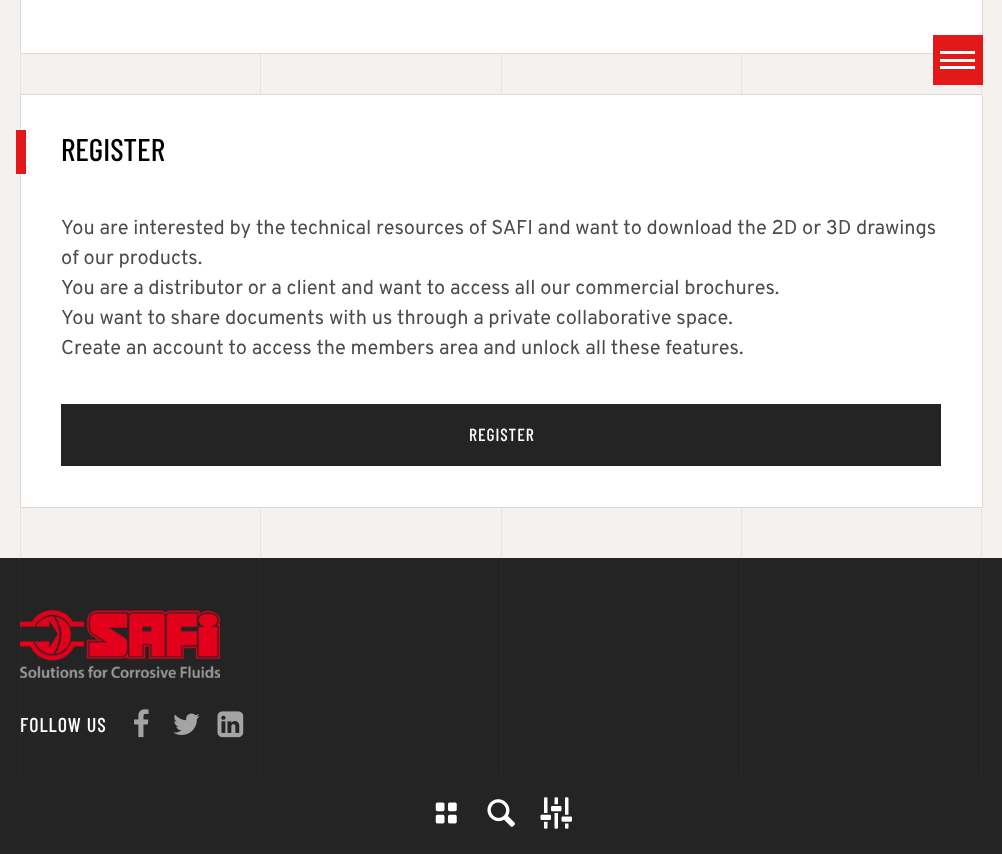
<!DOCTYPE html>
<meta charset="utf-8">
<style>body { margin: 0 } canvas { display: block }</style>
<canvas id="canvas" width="1002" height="854"></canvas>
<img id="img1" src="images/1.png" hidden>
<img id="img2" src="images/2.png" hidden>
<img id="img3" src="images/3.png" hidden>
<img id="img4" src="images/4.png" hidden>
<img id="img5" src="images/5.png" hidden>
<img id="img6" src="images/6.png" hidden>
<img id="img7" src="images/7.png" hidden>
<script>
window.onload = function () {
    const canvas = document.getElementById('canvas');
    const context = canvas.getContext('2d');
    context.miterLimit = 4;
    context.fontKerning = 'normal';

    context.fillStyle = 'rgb(244, 241, 239)';
    context.fillRect(0, 0, 1002, 854);
    context.fillStyle = 'rgb(230, 227, 226)';
    context.fillRect(981, 85, 1, 473);
    context.fillRect(741, 54, 1, 504);
    context.fillRect(501, 54, 1, 504);
    context.fillRect(260, 54, 1, 504);
    context.fillRect(20, 54, 1, 504);
    context.fillStyle = 'rgb(255, 255, 255)';
    context.beginPath();
    context.rect(20.5, -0.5, 962, 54);
    context.fill();
    context.strokeStyle = 'rgb(221, 219, 218)';
    context.stroke();
    context.fillStyle = 'rgb(227, 24, 24)';
    context.fillRect(933, 35, 50, 50);
    context.fillStyle = 'rgb(255, 255, 255)';
    context.fillRect(940, 51, 35, 3);
    context.fillRect(940, 59, 35, 3);
    context.fillRect(940, 66, 35, 3);
    context.beginPath();
    context.rect(20.5, 94.5, 962, 413);
    context.fill();
    context.stroke();
    context.fillStyle = 'rgb(227, 24, 24)';
    context.fillRect(16, 130, 10, 44);
    context.fillStyle = 'rgb(36, 36, 36)';
    context.fillRect(61, 404, 880, 62);
    context.fillRect(0, 558, 1002, 296);
    context.fillStyle = 'rgb(43, 43, 43)';
    context.fillRect(981, 558, 1, 215);
    context.fillRect(741, 558, 1, 215);
    context.fillRect(501, 558, 1, 215);
    context.fillRect(260, 558, 1, 215);
    context.fillRect(20, 558, 1, 215);
    context.drawImage(document.getElementById('img1'), 20, 610, 200, 68);
    context.drawImage(document.getElementById('img2'), 134, 709, 15, 29);
    context.drawImage(document.getElementById('img3'), 173, 713, 27, 22);
    context.drawImage(document.getElementById('img4'), 217, 711, 27, 27);
    context.drawImage(document.getElementById('img5'), 435, 802, 22, 22);
    context.drawImage(document.getElementById('img6'), 487, 799, 28, 28);
    context.drawImage(document.getElementById('img7'), 540, 797, 32, 32);
    context.font = '500 31.5px Barlow Condensed';
    context.fillStyle = 'rgb(0, 0, 0)';
    context.fillText('REGISTER', 61, 161);
    context.font = '20px Overpass';
    context.fillStyle = 'rgb(76, 76, 75)';
    context.fillText('You are interested by the technical resources of SAFI and want to download the 2D or 3D drawings', 61, 234);
    context.fillText('of our products.', 61, 264);
    context.fillText('You are a distributor or a client and want to access all our commercial brochures.', 61, 294);
    context.fillText('You want to share documents with us through a private collaborative space.', 61, 324);
    context.fillText('Create an account to access the members area and unlock all these features.', 61, 354);
    context.letterSpacing = '1px';
    context.font = '500 17.5px Barlow Condensed';
    context.fillStyle = 'rgb(255, 255, 255)';
    context.fillText('REGISTER', 469, 441);
    context.font = '500 20px Barlow Condensed';
    context.fillText('FOLLOW US', 20, 732);
};
</script>
